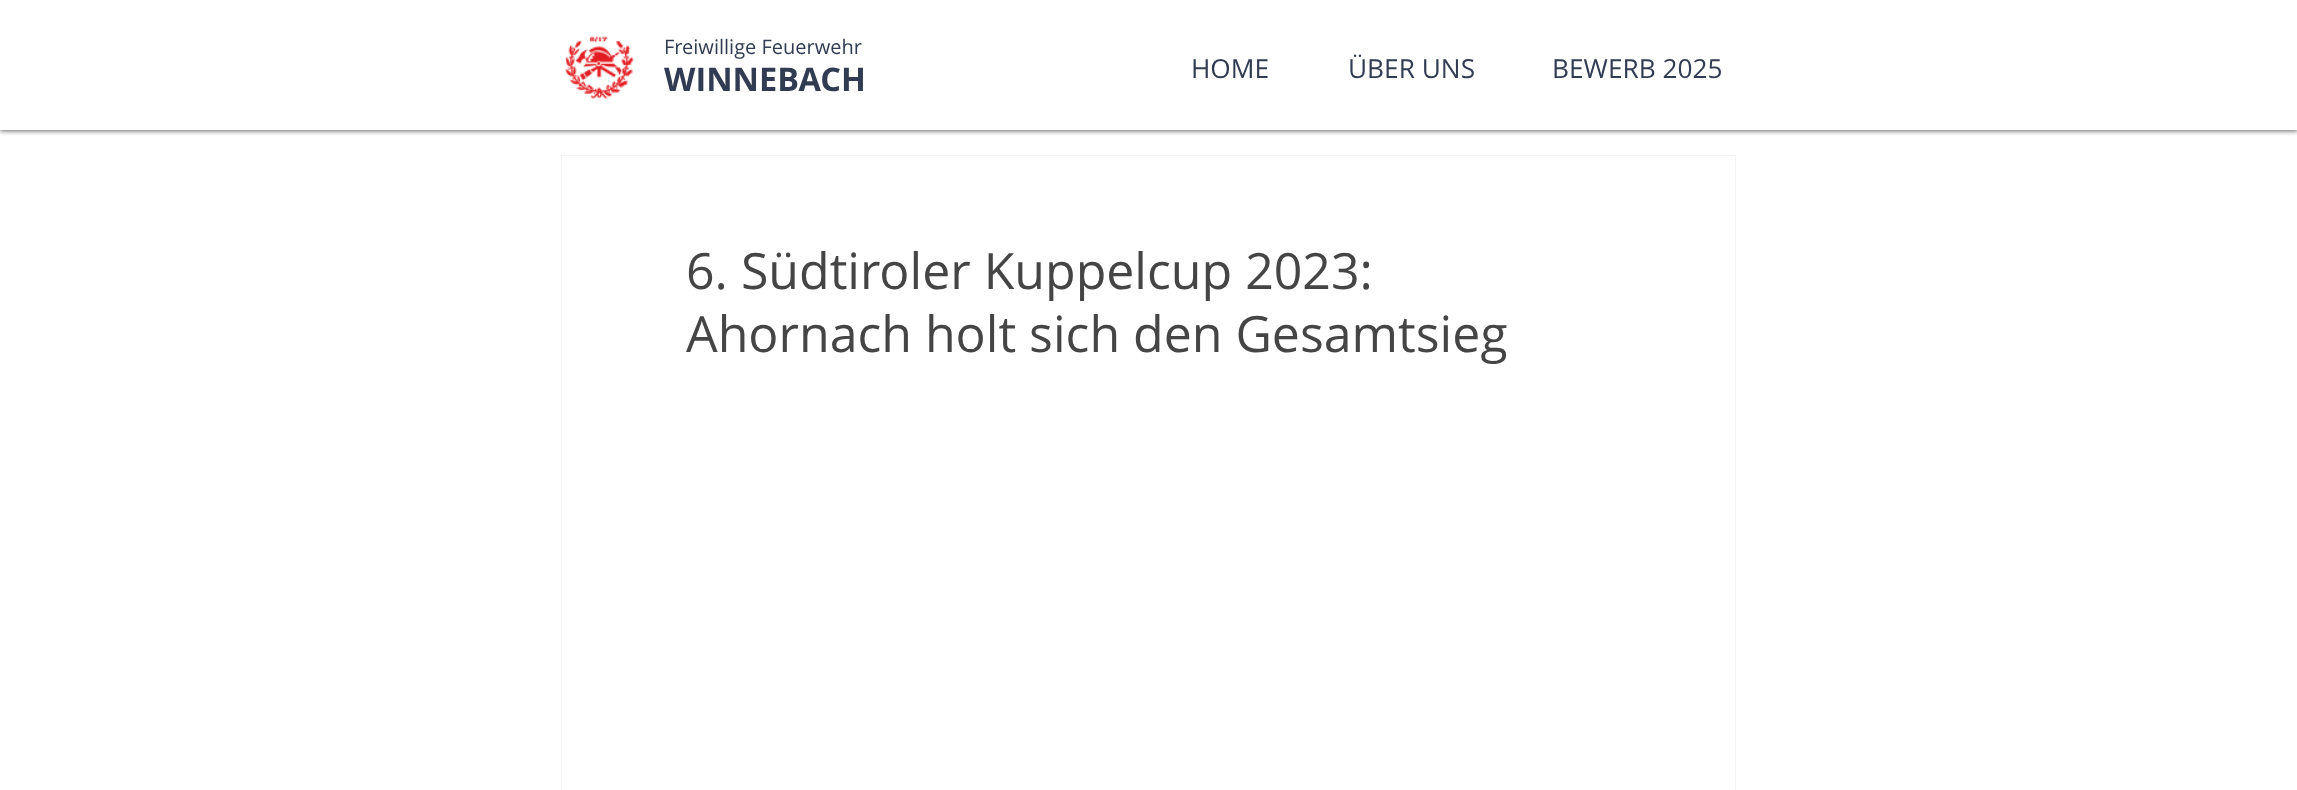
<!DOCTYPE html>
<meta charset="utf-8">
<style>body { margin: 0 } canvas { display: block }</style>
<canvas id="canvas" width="2297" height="790"></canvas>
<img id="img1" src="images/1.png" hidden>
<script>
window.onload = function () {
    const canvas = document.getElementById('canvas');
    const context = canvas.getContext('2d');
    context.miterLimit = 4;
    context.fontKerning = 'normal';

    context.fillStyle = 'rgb(255, 255, 255)';
    context.fillRect(0, 0, 2297, 790);
    context.save();
    context.beginPath();
    context.rect(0, 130, 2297, 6);
    context.clip();
    context.fillStyle = 'rgba(0, 0, 0, 0.6)';
    context.filter = 'blur(2.5px)';
    context.beginPath();
    context.rect(0, 1, 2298, 130);
    context.fill();
    context.filter = 'none';
    context.restore();
    context.drawImage(document.getElementById('img1'), 565, 36, 69, 63);
    context.strokeStyle = 'rgb(243, 243, 243)';
    context.strokeRect(561.5, 155.5, 1174, 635);
    context.font = '20px Open Sans';
    context.fillStyle = 'rgb(49, 60, 82)';
    context.fillText('Freiwillige Feuerwehr', 664, 54);
    context.font = 'bold 32.5px Open Sans';
    context.fillText('WINNEBACH', 664, 91);
    context.font = '26.25px Open Sans';
    context.fillText('HOME', 1191, 78);
    context.fillText('ÜBER UNS', 1348, 78);
    context.fillText('BEWERB 2025', 1552, 78);
    context.font = '50px Open Sans';
    context.fillStyle = 'rgb(69, 69, 69)';
    context.fillText('6. Südtiroler Kuppelcup 2023:', 686, 289);
    context.fillText('Ahornach holt sich den Gesamtsieg', 686, 352);
};
</script>
